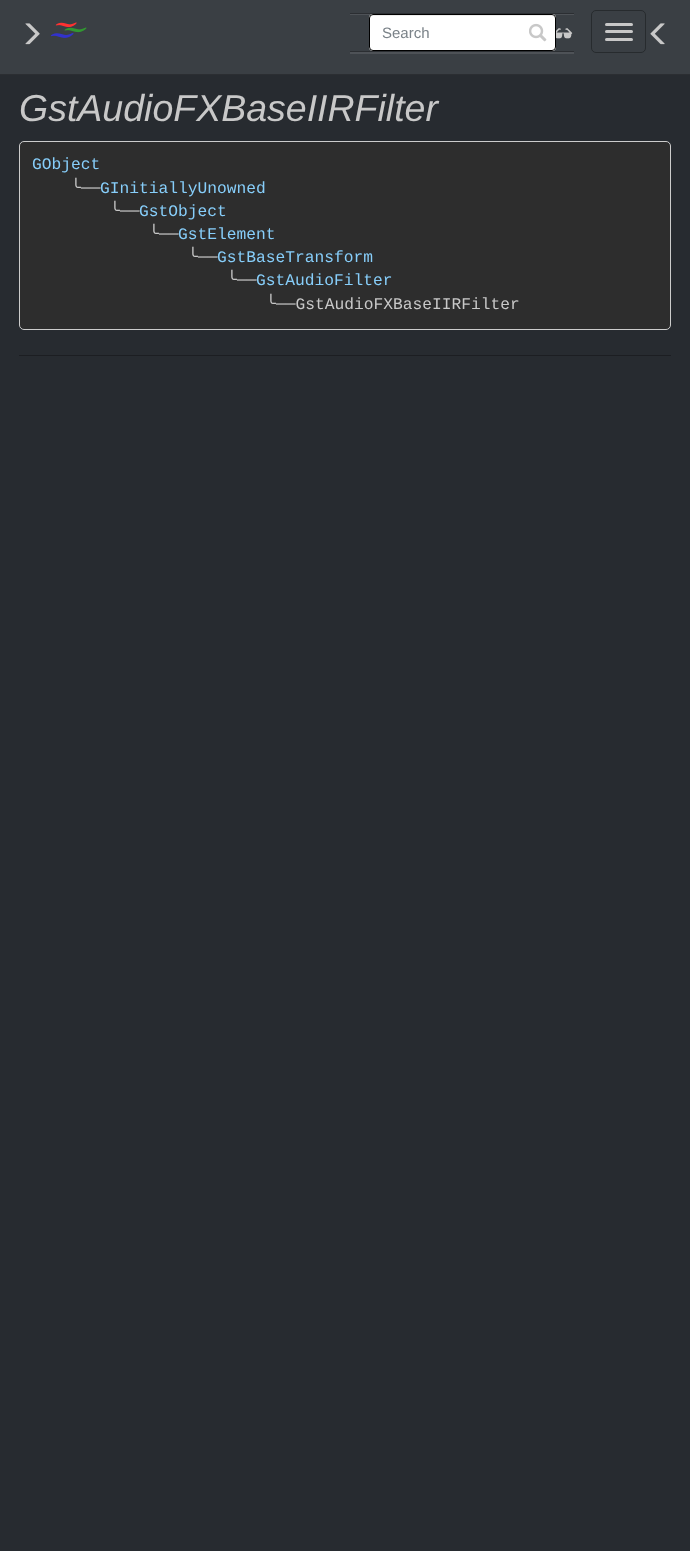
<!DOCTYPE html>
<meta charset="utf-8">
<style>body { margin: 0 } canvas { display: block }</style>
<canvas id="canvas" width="690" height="1551"></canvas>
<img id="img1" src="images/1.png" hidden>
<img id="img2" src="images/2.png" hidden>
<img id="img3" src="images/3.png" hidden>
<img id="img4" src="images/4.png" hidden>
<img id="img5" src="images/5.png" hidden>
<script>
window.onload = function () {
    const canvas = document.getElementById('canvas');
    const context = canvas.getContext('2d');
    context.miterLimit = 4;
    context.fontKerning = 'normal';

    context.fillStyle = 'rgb(39, 43, 48)';
    context.fillRect(0, 0, 690, 1551);
    context.fillStyle = 'rgb(58, 63, 68)';
    context.fillRect(0, 0, 690, 74);
    context.fillStyle = 'rgb(43, 46, 50)';
    context.fillRect(0, 74, 690, 1);
    context.drawImage(document.getElementById('img1'), 25, 23, 15, 22);
    context.drawImage(document.getElementById('img2'), 50, 22, 37, 16);
    context.fillStyle = 'rgb(78, 82, 87)';
    context.beginPath();
    context.moveTo(350, 52);
    context.lineTo(350, 54);
    context.lineTo(574, 54);
    context.lineTo(574, 14);
    context.lineTo(574, 52);
    context.closePath();
    context.fill();
    context.fillRect(350, 14, 224, 1);
    context.fillStyle = 'rgb(43, 46, 50)';
    context.fillRect(350, 13, 224, 1);
    context.fillRect(350, 51, 224, 1);
    context.fillStyle = 'rgb(255, 255, 255)';
    context.beginPath();
    context.roundRect(369, 14, 187, 37, 4);
    context.fill();
    context.fillStyle = 'rgb(236, 236, 236)';
    context.beginPath();
    context.moveTo(372, 16);
    context.lineTo(552, 16);
    context.lineTo(554, 17);
    context.lineTo(555, 19);
    context.bezierCurveTo(555, 17, 555, 15, 552, 15);
    context.lineTo(372, 15);
    context.bezierCurveTo(370, 15, 370, 17, 370, 19);
    context.bezierCurveTo(370, 17, 371, 16, 372, 16);
    context.closePath();
    context.fill();
    context.beginPath();
    context.roundRect(369.5, 14.5, 186, 36, 3.5);
    context.strokeStyle = 'rgb(0, 0, 0)';
    context.stroke();
    context.drawImage(document.getElementById('img3'), 529, 23, 18, 19);
    context.drawImage(document.getElementById('img4'), 556, 28, 17, 11);
    context.beginPath();
    context.roundRect(591.5, 10.5, 54, 42, 4.5);
    context.strokeStyle = 'rgb(39, 43, 46)';
    context.stroke();
    context.fillStyle = 'rgb(200, 200, 200)';
    context.beginPath();
    context.roundRect(605, 23, 28, 3, 1.5);
    context.fill();
    context.beginPath();
    context.roundRect(605, 30, 28, 3, 1.5);
    context.fill();
    context.beginPath();
    context.roundRect(605, 38, 28, 3, 1.5);
    context.fill();
    context.drawImage(document.getElementById('img5'), 650, 23, 15, 22);
    context.fillStyle = 'rgb(45, 45, 45)';
    context.beginPath();
    context.roundRect(19.5, 141.5, 651, 188, 4.5);
    context.fill();
    context.strokeStyle = 'rgb(204, 204, 204)';
    context.stroke();
    context.fillStyle = 'rgb(28, 30, 34)';
    context.fillRect(19, 355, 652, 1);
    context.font = '15px Liberation Sans';
    context.fillStyle = 'rgb(122, 130, 136)';
    context.fillText('Search', 382, 38);
    context.font = 'italic 37.5px Liberation Sans';
    context.fillStyle = 'rgb(200, 200, 200)';
    context.fillText('GstAudioFXBaseIIRFilter', 19, 121);
    context.font = '16.25px Liberation Mono';
    context.fillStyle = 'rgb(135, 206, 250)';
    context.fillText('GObject', 32, 169);
    context.font = '16.25px DejaVu Sans Mono';
    context.fillStyle = 'rgb(200, 200, 200)';
    context.fillText('╰', 71, 193);
    context.font = '16.25px Liberation Mono';
    context.fillText('──', 81, 193);
    context.fillStyle = 'rgb(135, 206, 250)';
    context.fillText('GInitiallyUnowned', 100, 193);
    context.font = '16.25px DejaVu Sans Mono';
    context.fillStyle = 'rgb(200, 200, 200)';
    context.fillText('╰', 110, 216);
    context.font = '16.25px Liberation Mono';
    context.fillText('──', 120, 216);
    context.fillStyle = 'rgb(135, 206, 250)';
    context.fillText('GstObject', 139, 216);
    context.font = '16.25px DejaVu Sans Mono';
    context.fillStyle = 'rgb(200, 200, 200)';
    context.fillText('╰', 149, 239);
    context.font = '16.25px Liberation Mono';
    context.fillText('──', 159, 239);
    context.fillStyle = 'rgb(135, 206, 250)';
    context.fillText('GstElement', 178, 239);
    context.font = '16.25px DejaVu Sans Mono';
    context.fillStyle = 'rgb(200, 200, 200)';
    context.fillText('╰', 188, 262);
    context.font = '16.25px Liberation Mono';
    context.fillText('──', 198, 262);
    context.fillStyle = 'rgb(135, 206, 250)';
    context.fillText('GstBaseTransform', 217, 262);
    context.font = '16.25px DejaVu Sans Mono';
    context.fillStyle = 'rgb(200, 200, 200)';
    context.fillText('╰', 227, 285);
    context.font = '16.25px Liberation Mono';
    context.fillText('──', 237, 285);
    context.fillStyle = 'rgb(135, 206, 250)';
    context.fillText('GstAudioFilter', 256, 285);
    context.font = '16.25px DejaVu Sans Mono';
    context.fillStyle = 'rgb(200, 200, 200)';
    context.fillText('╰', 266, 309);
    context.font = '16.25px Liberation Mono';
    context.fillText('──GstAudioFXBaseIIRFilter', 276, 309);
};
</script>
